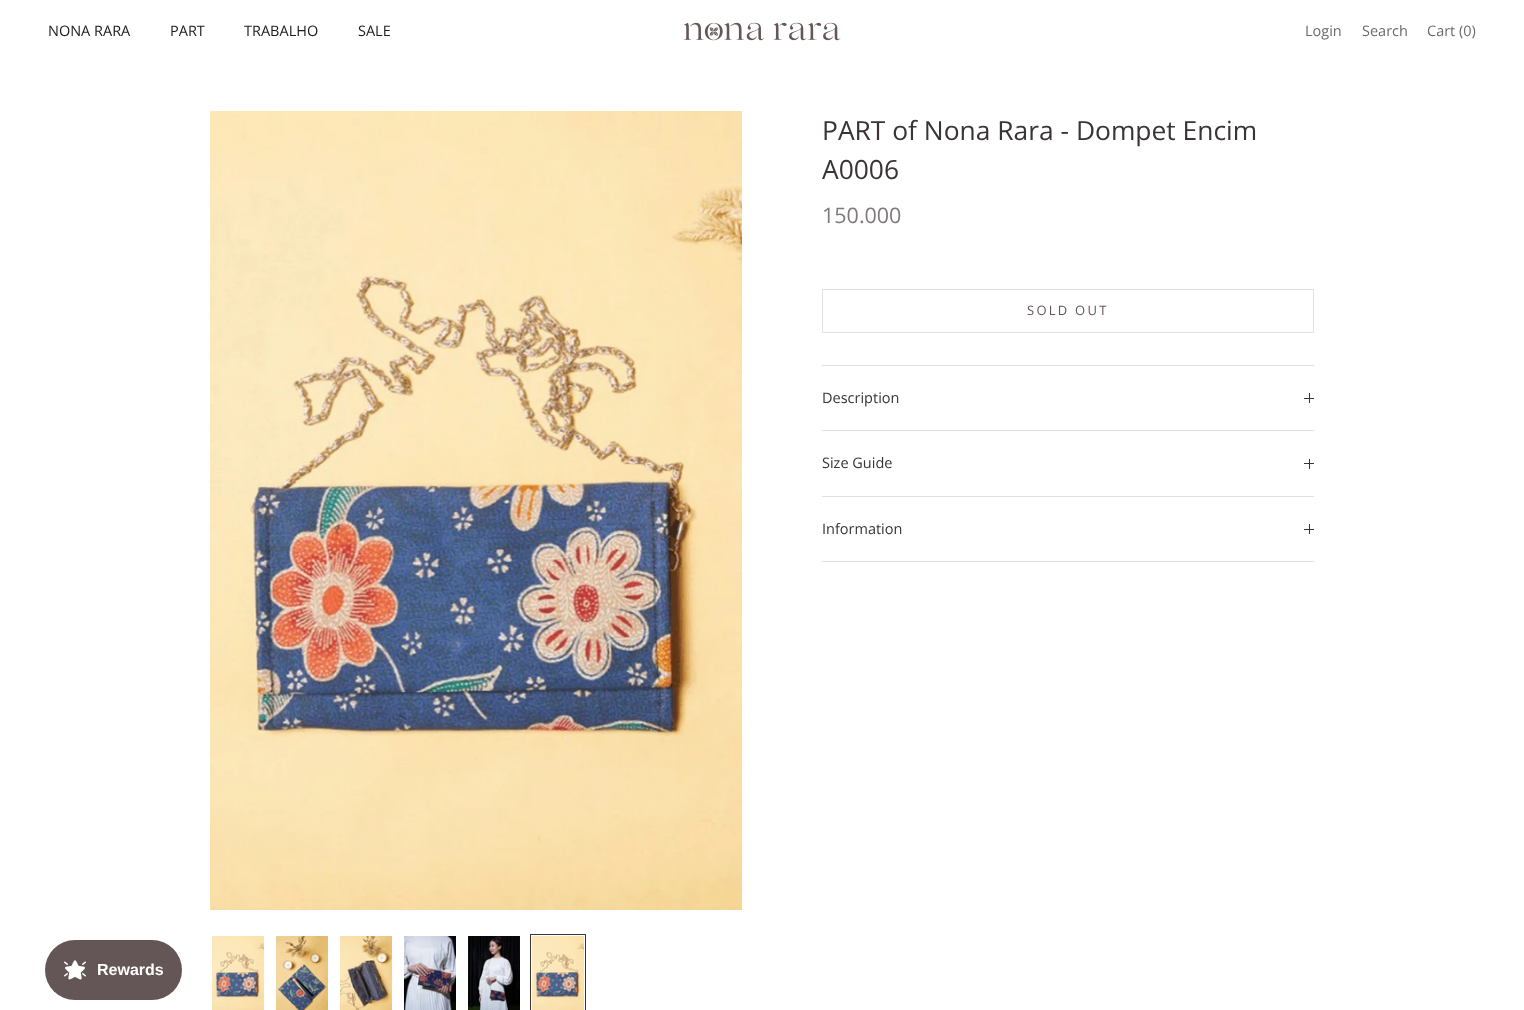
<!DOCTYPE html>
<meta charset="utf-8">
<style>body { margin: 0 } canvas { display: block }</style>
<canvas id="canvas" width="1524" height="1010"></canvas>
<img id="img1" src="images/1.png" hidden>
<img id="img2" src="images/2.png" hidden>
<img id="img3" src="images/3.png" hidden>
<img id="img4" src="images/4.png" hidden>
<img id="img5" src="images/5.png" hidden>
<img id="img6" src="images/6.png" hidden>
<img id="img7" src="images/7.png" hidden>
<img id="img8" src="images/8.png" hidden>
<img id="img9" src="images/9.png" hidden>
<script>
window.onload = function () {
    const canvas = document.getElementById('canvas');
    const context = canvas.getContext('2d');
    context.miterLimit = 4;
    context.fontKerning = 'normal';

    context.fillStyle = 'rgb(255, 255, 255)';
    context.fillRect(0, 0, 1524, 1010);
    context.drawImage(document.getElementById('img1'), 683, 22, 158, 19);
    context.drawImage(document.getElementById('img2'), 210, 111, 532, 799);
    context.drawImage(document.getElementById('img3'), 212, 936, 52, 74);
    context.drawImage(document.getElementById('img4'), 276, 936, 52, 74);
    context.drawImage(document.getElementById('img5'), 340, 936, 52, 74);
    context.drawImage(document.getElementById('img6'), 404, 936, 52, 74);
    context.drawImage(document.getElementById('img7'), 468, 936, 52, 74);
    context.strokeStyle = 'rgb(58, 52, 52)';
    context.strokeRect(530.5, 934.5, 55, 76);
    context.drawImage(document.getElementById('img8'), 532, 936, 52, 74);
    context.strokeStyle = 'rgb(225, 225, 225)';
    context.strokeRect(822.5, 289.5, 491, 43);
    context.fillStyle = 'rgb(225, 225, 225)';
    context.fillRect(822, 365, 492, 1);
    context.fillRect(822, 430, 492, 1);
    context.fillStyle = 'rgb(58, 52, 52)';
    context.fillRect(1309, 393, 1, 10);
    context.fillRect(1304, 398, 10, 1);
    context.fillStyle = 'rgb(225, 225, 225)';
    context.fillRect(822, 496, 492, 1);
    context.fillStyle = 'rgb(58, 52, 52)';
    context.fillRect(1309, 459, 1, 10);
    context.fillRect(1304, 463, 10, 1);
    context.fillStyle = 'rgb(225, 225, 225)';
    context.fillRect(822, 561, 492, 1);
    context.fillStyle = 'rgb(58, 52, 52)';
    context.fillRect(1309, 524, 1, 10);
    context.fillRect(1304, 529, 10, 1);
    context.fillStyle = 'rgb(100, 85, 87)';
    context.beginPath();
    context.roundRect(45, 940, 137, 60, 30);
    context.fill();
    context.drawImage(document.getElementById('img9'), 64, 960, 22, 20);
    context.font = '14.5px Open Sans';
    context.fillStyle = 'rgb(28, 28, 28)';
    context.fillText('NONA RARA', 48, 36);
    context.fillText('PART', 170, 36);
    context.fillText('TRABALHO', 244, 36);
    context.fillText('SALE', 358, 36);
    context.fillStyle = 'rgb(107, 107, 107)';
    context.fillText('Login', 1305, 36);
    context.fillText('Search', 1362, 36);
    context.fillText('Cart (0)', 1427, 36);
    context.font = '26.4px Open Sans';
    context.fillStyle = 'rgb(58, 52, 52)';
    context.fillText('PART of Nona Rara - Dompet Encim', 822, 140);
    context.fillText('A0006', 822, 179);
    context.font = '21.5px Open Sans';
    context.fillStyle = 'rgb(127, 123, 123)';
    context.fillText('150.000', 822, 223);
    context.letterSpacing = '2.25px';
    context.font = '13px Open Sans';
    context.fillStyle = 'rgb(100, 86, 87)';
    context.fillText('SOLD OUT', 1027, 315);
    context.letterSpacing = '0px';
    context.font = '14.5px Open Sans';
    context.fillStyle = 'rgb(58, 52, 52)';
    context.fillText('Description', 822, 403);
    context.fillText('Size Guide', 822, 468);
    context.fillText('Information', 822, 534);
    context.font = 'bold 16px Liberation Sans';
    context.fillStyle = 'rgb(255, 255, 255)';
    context.fillText('Rewards', 97, 975);
};
</script>
